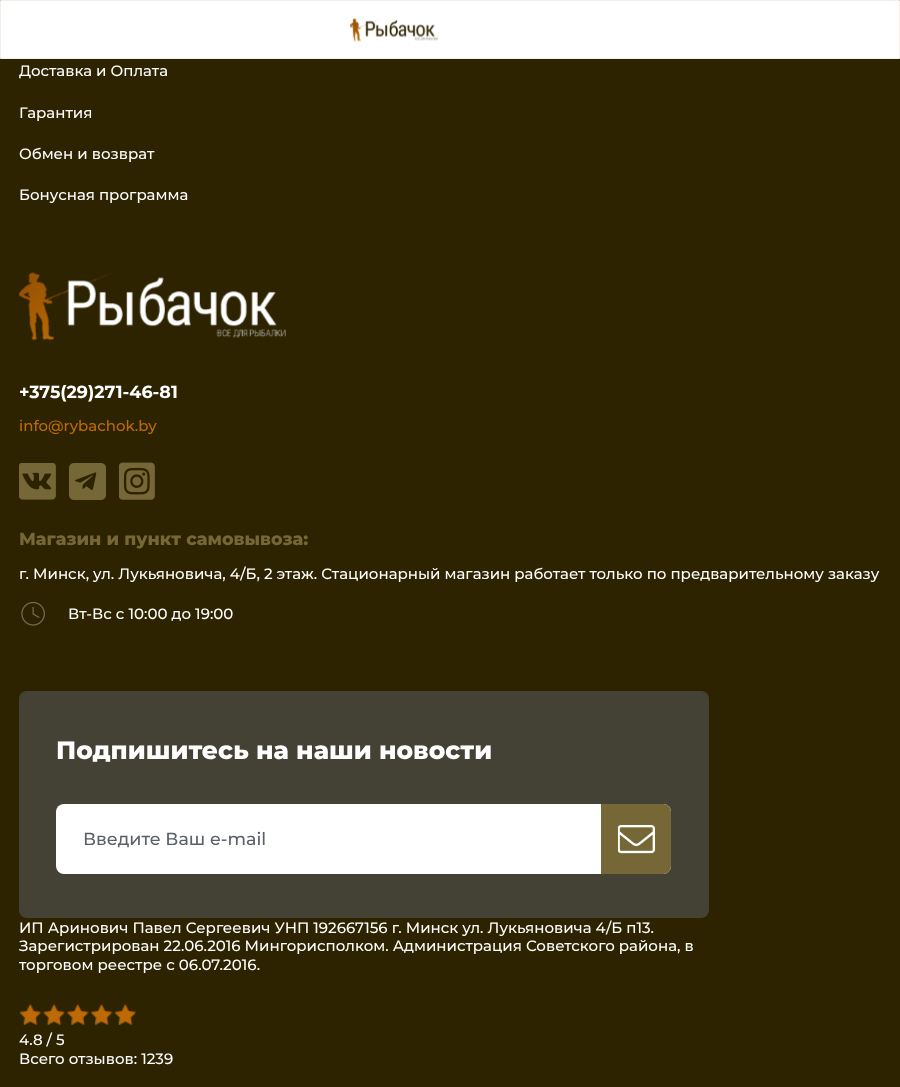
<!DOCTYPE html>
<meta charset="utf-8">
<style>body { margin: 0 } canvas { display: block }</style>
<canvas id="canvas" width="900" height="1087"></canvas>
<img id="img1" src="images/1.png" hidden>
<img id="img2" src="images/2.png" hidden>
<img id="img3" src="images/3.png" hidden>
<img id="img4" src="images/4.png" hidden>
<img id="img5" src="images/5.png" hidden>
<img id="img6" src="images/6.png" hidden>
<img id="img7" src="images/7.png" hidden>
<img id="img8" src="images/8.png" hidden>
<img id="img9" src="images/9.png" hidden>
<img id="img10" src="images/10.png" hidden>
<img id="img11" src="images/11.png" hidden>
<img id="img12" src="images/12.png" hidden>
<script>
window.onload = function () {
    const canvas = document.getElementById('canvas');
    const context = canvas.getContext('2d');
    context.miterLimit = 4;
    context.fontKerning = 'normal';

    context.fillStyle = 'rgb(46, 35, 0)';
    context.fillRect(0, 0, 900, 1087);
    context.fillStyle = 'rgb(255, 255, 255)';
    context.beginPath();
    context.rect(0.5, 0.5, 899, 58);
    context.fill();
    context.strokeStyle = 'rgb(244, 239, 233)';
    context.stroke();
    context.drawImage(document.getElementById('img1'), 350, 18, 88, 24);
    context.drawImage(document.getElementById('img2'), 19, 271, 275, 70);
    context.drawImage(document.getElementById('img3'), 19, 463, 37, 37);
    context.drawImage(document.getElementById('img4'), 69, 463, 37, 37);
    context.drawImage(document.getElementById('img5'), 119, 462, 36, 38);
    context.drawImage(document.getElementById('img6'), 21, 601, 24, 25);
    context.fillStyle = 'rgb(68, 66, 52)';
    context.beginPath();
    context.roundRect(19, 691, 690, 227, 8);
    context.fill();
    context.fillStyle = 'rgb(255, 255, 255)';
    context.beginPath();
    context.roundRect(56, 804, 615, 70, 8);
    context.fill();
    context.fillStyle = 'rgb(118, 103, 55)';
    context.beginPath();
    context.roundRect(601, 804, 70, 70, [0, 8, 8, 0]);
    context.fill();
    context.drawImage(document.getElementById('img7'), 618, 825, 37, 29);
    context.drawImage(document.getElementById('img8'), 19, 1004, 23, 21);
    context.drawImage(document.getElementById('img9'), 43, 1004, 22, 21);
    context.drawImage(document.getElementById('img10'), 67, 1004, 22, 21);
    context.drawImage(document.getElementById('img11'), 91, 1004, 22, 21);
    context.drawImage(document.getElementById('img12'), 114, 1004, 23, 21);
    context.font = '500 15px Montserrat';
    context.fillStyle = 'rgb(255, 255, 255)';
    context.fillText('Доставка и Оплата', 19, 76);
    context.fillText('Гарантия', 19, 118);
    context.fillText('Обмен и возврат', 19, 159);
    context.fillText('Бонусная программа', 19, 200);
    context.font = 'bold 17.5px Montserrat';
    context.fillText('+375(29)271-46-81', 19, 398);
    context.font = '500 15px Montserrat';
    context.fillStyle = 'rgb(190, 108, 1)';
    context.fillText('info@rybachok.by', 19, 431);
    context.font = '800 17.5px Montserrat';
    context.fillStyle = 'rgb(118, 103, 55)';
    context.fillText('Магазин и пункт самовывоза:', 19, 545);
    context.font = '500 15px Montserrat';
    context.fillStyle = 'rgb(255, 255, 255)';
    context.fillText('г. Минск, ул. Лукьяновича, 4/Б, 2 этаж. Стационарный магазин работает только по предварительному заказу', 19, 579);
    context.fillText('Вт-Вс с 10:00 до 19:00', 68, 619);
    context.font = '800 25px Montserrat';
    context.fillText('Подпишитесь на наши новости', 56, 759);
    context.font = '500 17.5px Montserrat';
    context.fillStyle = 'rgb(89, 96, 103)';
    context.fillText('Введите Ваш e-mail', 83, 845);
    context.font = '500 15px Montserrat';
    context.fillStyle = 'rgb(255, 255, 255)';
    context.fillText('ИП Аринович Павел Сергеевич УНП 192667156 г. Минск ул. Лукьяновича 4/Б п13.', 19, 933);
    context.fillText('Зарегистрирован 22.06.2016 Мингорисполком. Администрация Советского района, в', 19, 951);
    context.fillText('торговом реестре с 06.07.2016.', 19, 970);
    context.fillText('4.8 / 5', 19, 1045);
    context.fillText('Всего отзывов: 1239', 19, 1064);
};
</script>
